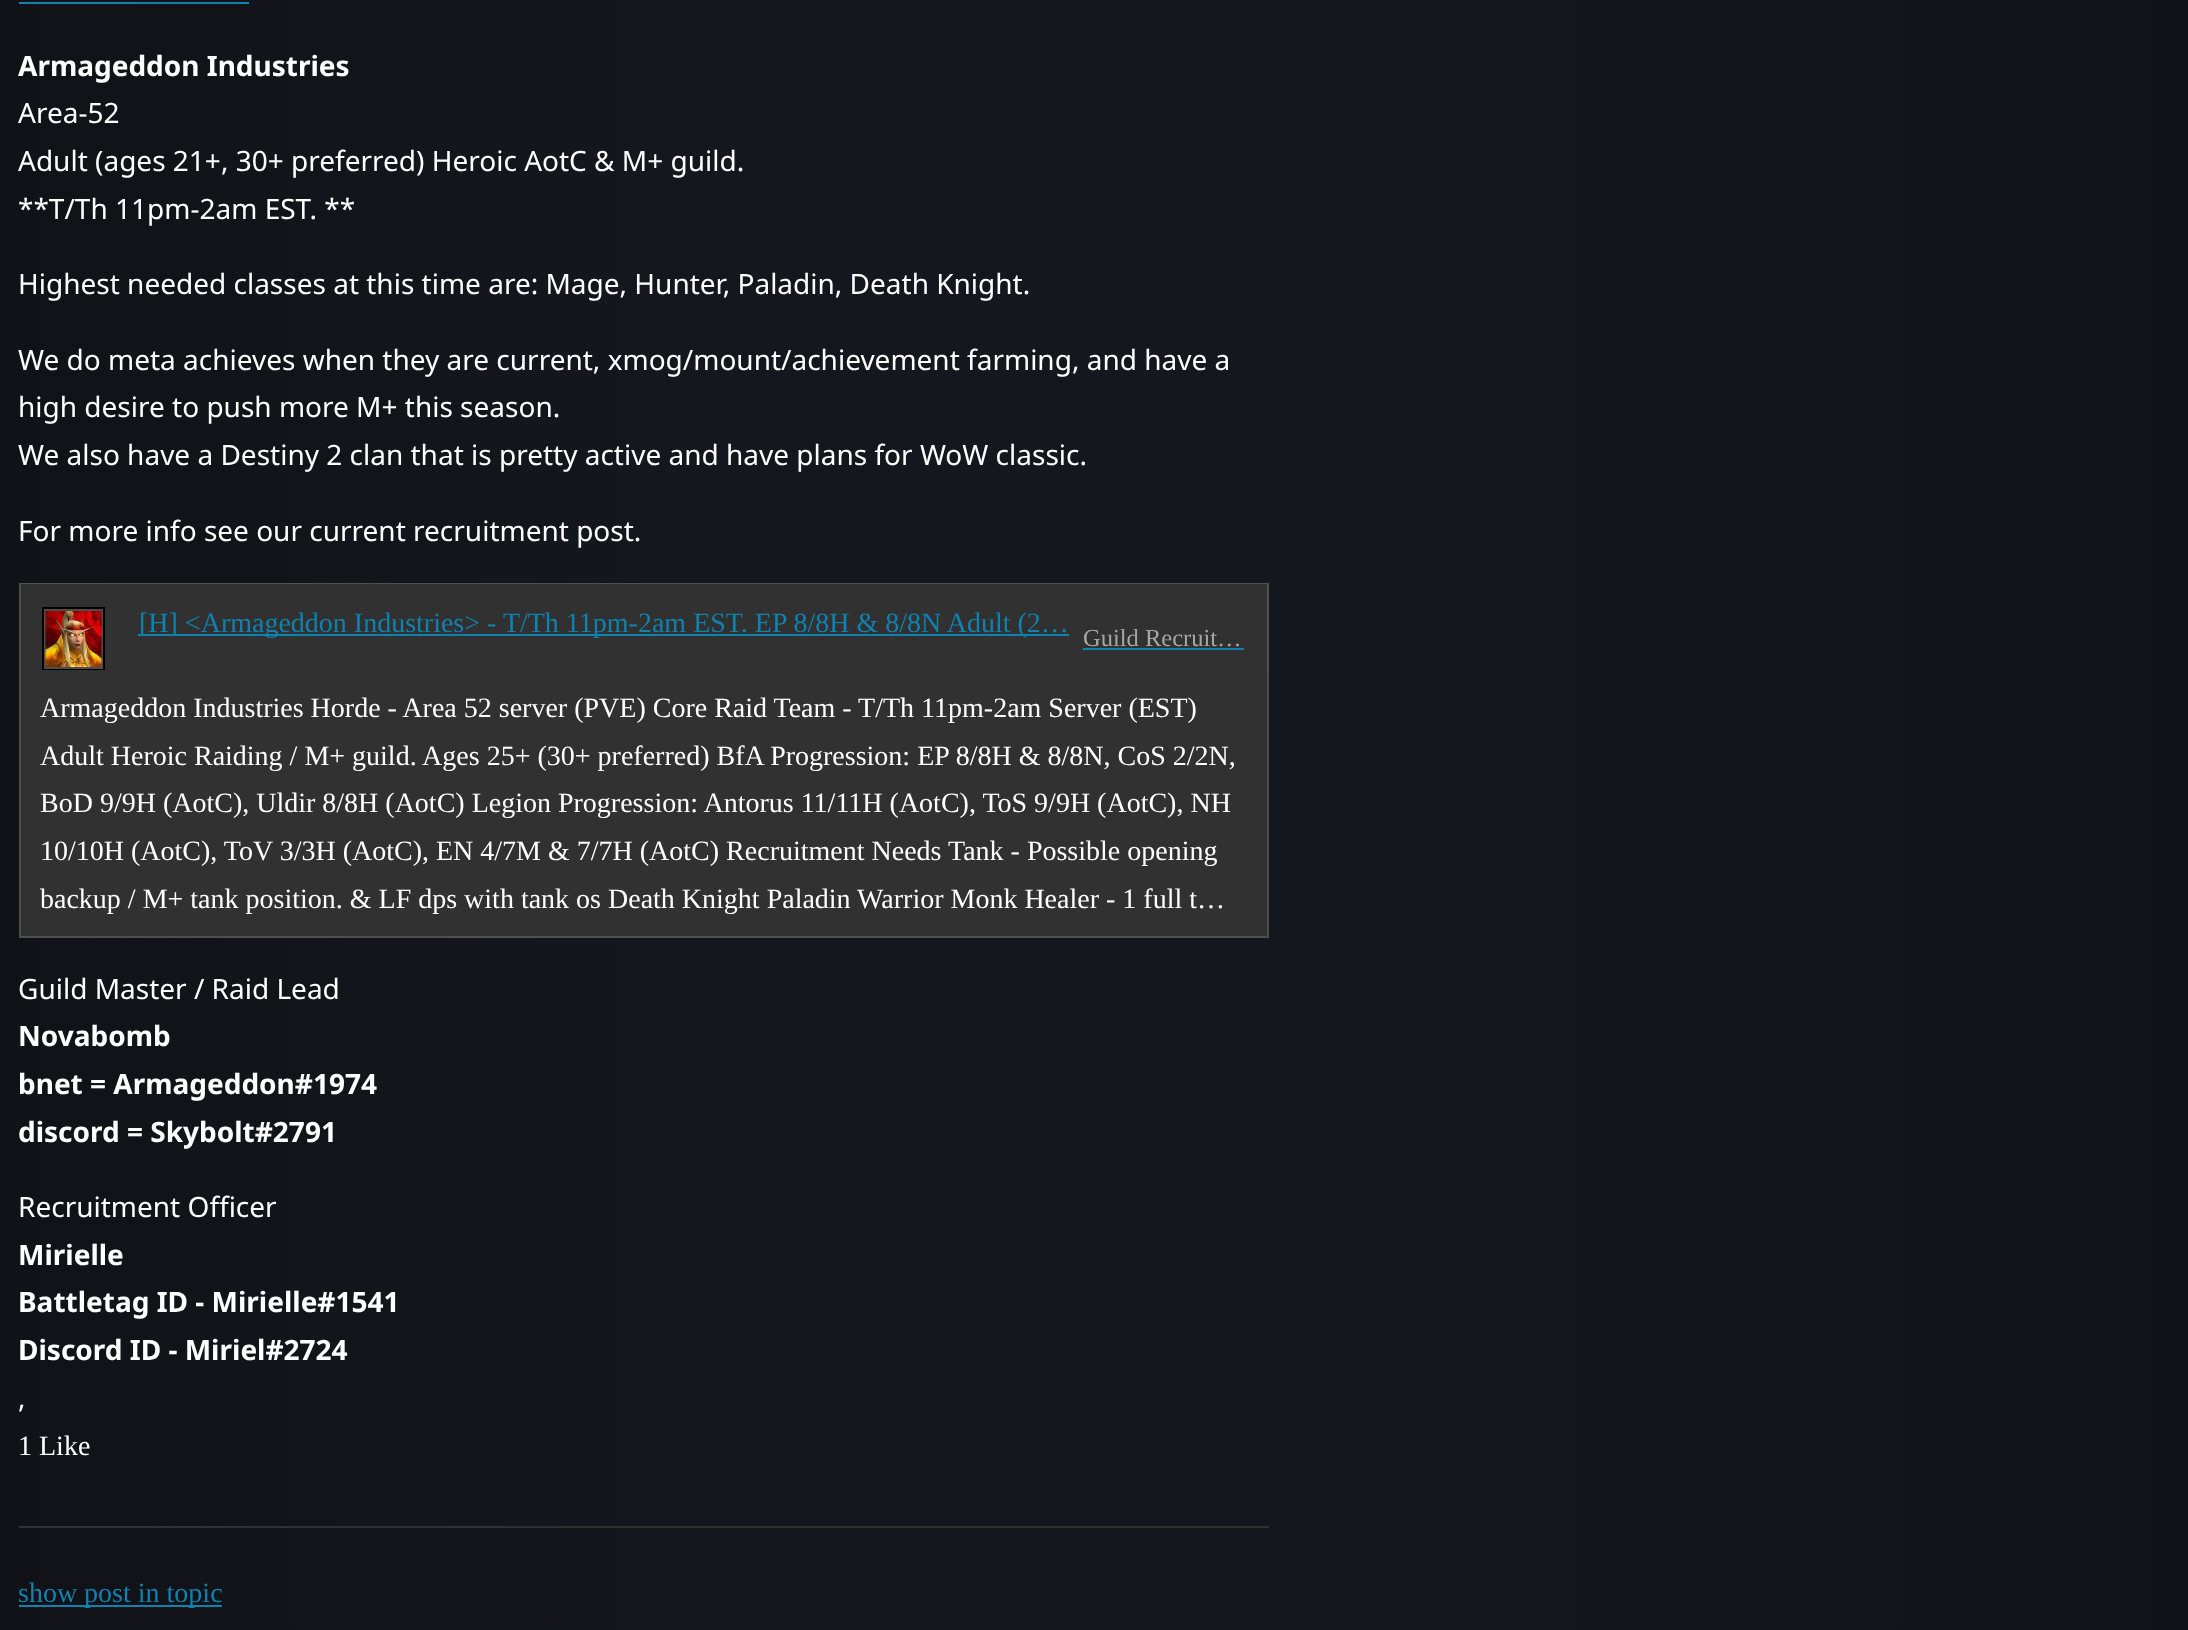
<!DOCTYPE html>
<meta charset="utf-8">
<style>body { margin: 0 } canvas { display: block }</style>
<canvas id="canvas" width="2188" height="1630"></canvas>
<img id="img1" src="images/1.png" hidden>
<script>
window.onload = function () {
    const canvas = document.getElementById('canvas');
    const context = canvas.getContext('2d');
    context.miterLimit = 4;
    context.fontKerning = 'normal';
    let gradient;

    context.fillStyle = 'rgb(255, 255, 255)';
    context.fillRect(0, 0, 2188, 1630);
    gradient = context.createLinearGradient(0, 746, 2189, 746);
    gradient.addColorStop(0, 'rgb(17, 18, 23)');
    gradient.addColorStop(0.3, 'rgb(21, 23, 30)');
    gradient.addColorStop(0.7, 'rgb(21, 23, 30)');
    gradient.addColorStop(1, 'rgb(17, 18, 23)');
    context.fillStyle = gradient;
    context.fillRect(0, 0, 2188, 1630);
    context.fillStyle = 'rgb(15, 130, 175)';
    context.fillRect(19, 2, 230, 2);
    context.fillStyle = 'rgb(49, 49, 49)';
    context.fillRect(19, 583, 1250, 355);
    context.fillStyle = 'rgb(80, 80, 80)';
    context.beginPath();
    context.moveTo(19, 583);
    context.lineTo(1269, 583);
    context.lineTo(1267, 584);
    context.lineTo(21, 584);
    context.closePath();
    context.fill();
    context.fillStyle = 'rgba(255, 255, 255, 0.15)';
    context.beginPath();
    context.moveTo(1269, 583);
    context.lineTo(1269, 670);
    context.lineTo(1267, 670);
    context.lineTo(1267, 584);
    context.closePath();
    context.fill();
    context.beginPath();
    context.moveTo(19, 670);
    context.lineTo(19, 583);
    context.lineTo(21, 584);
    context.lineTo(21, 670);
    context.closePath();
    context.fill();
    context.strokeStyle = 'rgb(0, 0, 0)';
    context.lineWidth = 4;
    context.strokeRect(44, 609, 59, 59);
    context.strokeStyle = 'rgb(77, 77, 77)';
    context.lineWidth = 2;
    context.strokeRect(45, 610, 57, 58);
    context.drawImage(document.getElementById('img1'), 45, 611, 57, 56);
    context.fillStyle = 'rgb(15, 130, 175)';
    context.fillRect(138, 634, 931, 2);
    context.fillRect(1083, 648, 161, 2);
    context.fillStyle = 'rgb(80, 80, 80)';
    context.beginPath();
    context.moveTo(1269, 670);
    context.lineTo(1269, 938);
    context.lineTo(1267, 936);
    context.lineTo(1267, 670);
    context.closePath();
    context.fill();
    context.fillStyle = 'rgba(255, 255, 255, 0.15)';
    context.beginPath();
    context.moveTo(1269, 938);
    context.lineTo(19, 938);
    context.lineTo(21, 936);
    context.lineTo(1267, 936);
    context.closePath();
    context.fill();
    context.beginPath();
    context.moveTo(19, 938);
    context.lineTo(19, 670);
    context.lineTo(21, 670);
    context.lineTo(21, 936);
    context.closePath();
    context.fill();
    context.fillStyle = 'rgb(49, 49, 49)';
    context.fillRect(19, 1526, 1250, 2);
    context.fillStyle = 'rgb(15, 130, 175)';
    context.fillRect(19, 1605, 203, 2);
    context.font = 'bold 28px Noto Sans';
    context.fillStyle = 'rgb(255, 255, 255)';
    context.fillText('Armageddon Industries', 18, 76);
    context.font = '28px Noto Sans';
    context.fillText('Area-52', 18, 123);
    context.fillText('Adult (ages 21+, 30+ preferred) Heroic AotC & M+ guild.', 18, 171);
    context.fillText('**T/Th 11pm-2am EST. **', 18, 219);
    context.fillText('Highest needed classes at this time are: Mage, Hunter, Paladin, Death Knight.', 18, 294);
    context.fillText('We do meta achieves when they are current, xmog/mount/achievement farming, and have a', 18, 370);
    context.fillText('high desire to push more M+ this season.', 18, 417);
    context.fillText('We also have a Destiny 2 clan that is pretty active and have plans for WoW classic.', 18, 465);
    context.fillText('For more info see our current recruitment post.', 18, 541);
    context.font = '28px Liberation Serif';
    context.fillStyle = 'rgb(15, 130, 175)';
    context.fillText('[H] <Armageddon Industries> - T/Th 11pm-2am EST. EP 8/8H & 8/8N Adult (2…', 139, 632);
    context.font = '24.5px Liberation Serif';
    context.fillStyle = 'rgb(166, 166, 166)';
    context.fillText('Guild Recruit…', 1083, 646);
    context.font = '28px Liberation Serif';
    context.fillStyle = 'rgb(255, 255, 255)';
    context.fillText('Armageddon Industries Horde - Area 52 server (PVE) Core Raid Team - T/Th 11pm-2am Server (EST)', 40, 717);
    context.fillText('Adult Heroic Raiding / M+ guild. Ages 25+ (30+ preferred) BfA Progression: EP 8/8H & 8/8N, CoS 2/2N,', 40, 765);
    context.fillText('BoD 9/9H (AotC), Uldir 8/8H (AotC) Legion Progression: Antorus 11/11H (AotC), ToS 9/9H (AotC), NH', 40, 812);
    context.fillText('10/10H (AotC), ToV 3/3H (AotC), EN 4/7M & 7/7H (AotC) Recruitment Needs', 40, 860);
    context.fillText('Tank - Possible opening', 948, 860);
    context.fillText('backup / M+ tank position. & LF dps with tank os Death Knight Paladin Warrior Monk Healer - 1 full t…', 40, 908);
    context.font = '28px Noto Sans';
    context.fillText('Guild Master / Raid Lead', 18, 999);
    context.font = 'bold 28px Noto Sans';
    context.fillText('Novabomb', 18, 1046);
    context.fillText('bnet = Armageddon#1974', 18, 1094);
    context.fillText('discord = Skybolt#2791', 18, 1142);
    context.font = '28px Noto Sans';
    context.fillText('Recruitment Officer', 18, 1217);
    context.font = 'bold 28px Noto Sans';
    context.fillText('Mirielle', 18, 1265);
    context.fillText('Battletag ID - Mirielle#1541', 18, 1312);
    context.fillText('Discord ID - Miriel#2724', 18, 1360);
    context.font = '28px Noto Sans';
    context.fillText(',', 18, 1408);
    context.font = '28px Liberation Serif';
    context.fillText('1 Like', 18, 1455);
    context.fillStyle = 'rgb(15, 130, 175)';
    context.fillText('show post in topic', 18, 1602);
};
</script>
